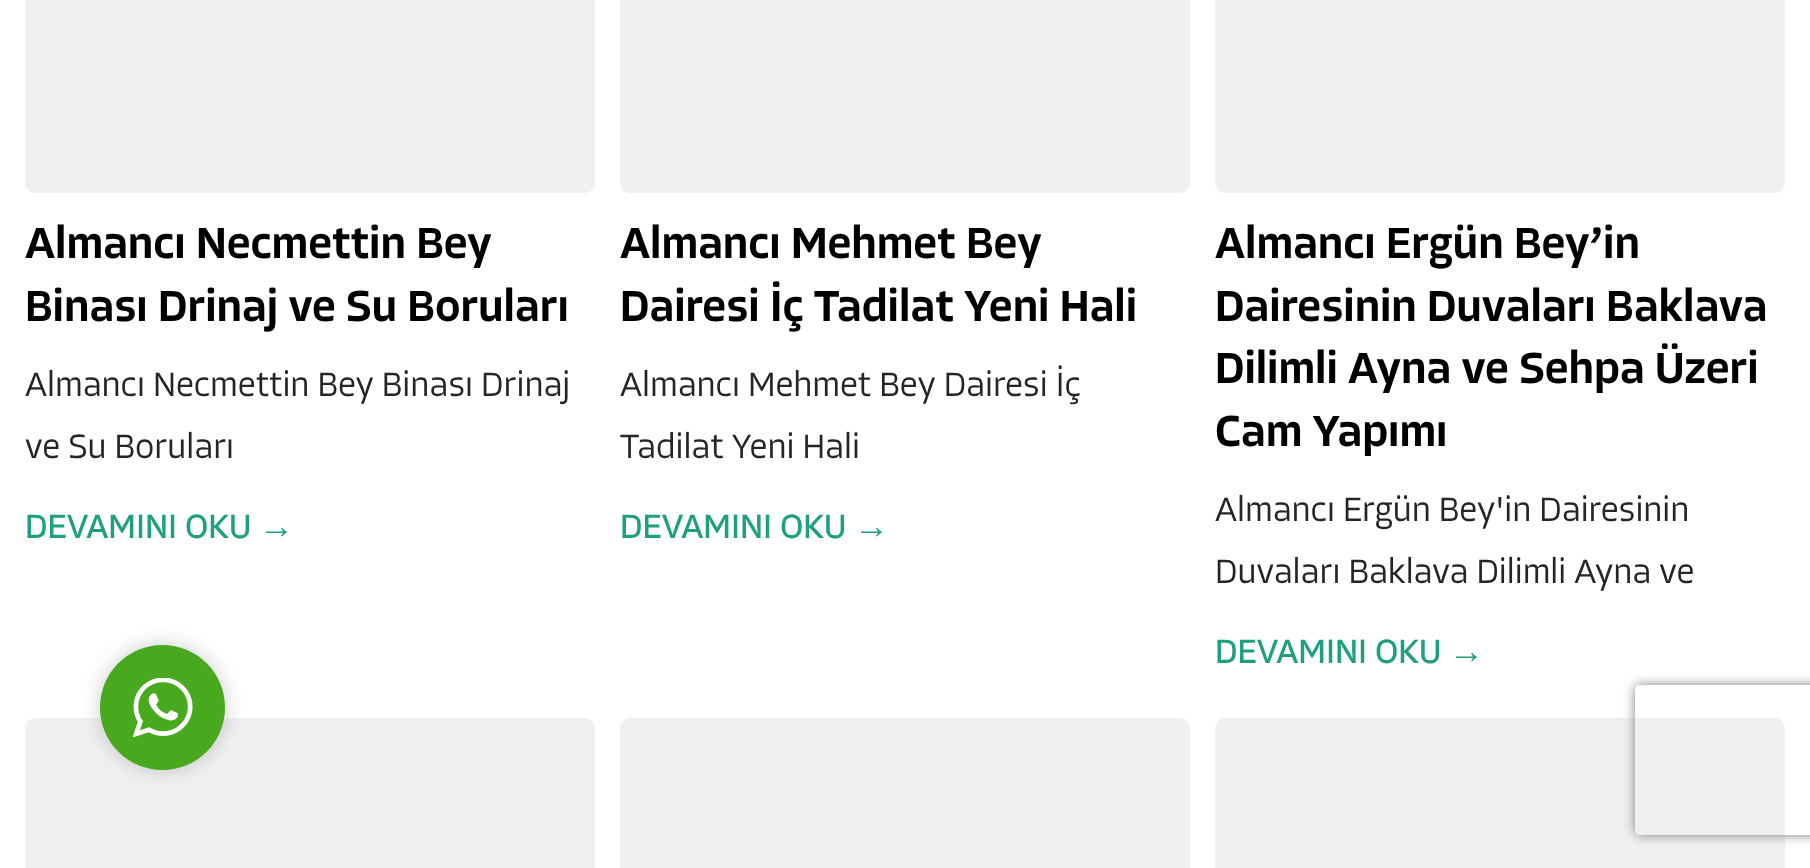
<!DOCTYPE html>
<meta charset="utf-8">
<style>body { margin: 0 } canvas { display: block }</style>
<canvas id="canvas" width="1810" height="868"></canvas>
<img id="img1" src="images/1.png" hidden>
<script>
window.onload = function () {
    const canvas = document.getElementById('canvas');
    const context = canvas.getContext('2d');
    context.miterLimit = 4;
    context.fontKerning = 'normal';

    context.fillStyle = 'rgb(255, 255, 255)';
    context.fillRect(0, 0, 1810, 868);
    context.fillStyle = 'rgb(240, 240, 240)';
    context.beginPath();
    context.roundRect(25, -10, 570, 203, 10);
    context.fill();
    context.beginPath();
    context.roundRect(620, -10, 570, 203, 10);
    context.fill();
    context.beginPath();
    context.roundRect(1215, -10, 570, 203, 10);
    context.fill();
    context.beginPath();
    context.roundRect(25, 718, 570, 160, 10);
    context.fill();
    context.beginPath();
    context.roundRect(620, 718, 570, 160, 10);
    context.fill();
    context.beginPath();
    context.roundRect(1215, 718, 570, 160, 10);
    context.fill();
    context.fillStyle = 'rgba(0, 0, 0, 0.2)';
    context.filter = 'blur(10px)';
    context.beginPath();
    context.roundRect(100, 645, 125, 125, 62.5);
    context.fill();
    context.filter = 'none';
    context.fillStyle = 'rgb(72, 169, 31)';
    context.beginPath();
    context.arc(162.5, 707.5, 62.5, 0, 2 * Math.PI);
    context.fill();
    context.drawImage(document.getElementById('img1'), 133, 678, 60, 60);
    context.save();
    context.beginPath();
    context.moveTo(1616, 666);
    context.lineTo(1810, 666);
    context.lineTo(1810, 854);
    context.lineTo(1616, 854);
    context.closePath();
    context.moveTo(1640, 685);
    context.lineTo(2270, 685);
    context.bezierCurveTo(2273, 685, 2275, 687, 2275, 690);
    context.lineTo(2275, 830);
    context.bezierCurveTo(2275, 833, 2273, 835, 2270, 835);
    context.lineTo(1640, 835);
    context.bezierCurveTo(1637, 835, 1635, 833, 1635, 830);
    context.lineTo(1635, 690);
    context.bezierCurveTo(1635, 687, 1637, 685, 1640, 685);
    context.closePath();
    context.clip('evenodd');
    context.fillStyle = 'rgb(128, 128, 128)';
    context.filter = 'blur(6px)';
    context.beginPath();
    context.roundRect(1635, 685, 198, 150, 5);
    context.fill();
    context.filter = 'none';
    context.restore();
    context.font = '500 45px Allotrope';
    context.fillStyle = 'rgb(0, 0, 0)';
    context.fillText('Almancı Necmettin Bey', 25, 258);
    context.fillText('Binası Drinaj ve Su Boruları', 25, 321);
    context.font = '300 35px Allotrope';
    context.fillStyle = 'rgb(37, 37, 37)';
    context.fillText('Almancı Necmettin Bey Binası Drinaj', 25, 396);
    context.fillText('ve Su Boruları', 25, 458);
    context.font = '35px Allotrope';
    context.fillStyle = 'rgb(29, 159, 128)';
    context.fillText('DEVAMINI OKU', 25, 538);
    context.font = '35px Liberation Sans';
    context.fillText('→', 259, 538);
    context.font = '500 45px Allotrope';
    context.fillStyle = 'rgb(0, 0, 0)';
    context.fillText('Almancı Mehmet Bey', 620, 258);
    context.fillText('Dairesi İç Tadilat Yeni Hali', 620, 321);
    context.font = '300 35px Allotrope';
    context.fillStyle = 'rgb(37, 37, 37)';
    context.fillText('Almancı Mehmet Bey Dairesi İç', 620, 396);
    context.fillText('Tadilat Yeni Hali', 620, 458);
    context.font = '35px Allotrope';
    context.fillStyle = 'rgb(29, 159, 128)';
    context.fillText('DEVAMINI OKU', 620, 538);
    context.font = '35px Liberation Sans';
    context.fillText('→', 854, 538);
    context.font = '500 45px Allotrope';
    context.fillStyle = 'rgb(0, 0, 0)';
    context.fillText('Almancı Ergün Bey’in', 1215, 258);
    context.fillText('Dairesinin Duvaları Baklava', 1215, 321);
    context.fillText('Dilimli Ayna ve Sehpa Üzeri', 1215, 383);
    context.fillText('Cam Yapımı', 1215, 446);
    context.font = '300 35px Allotrope';
    context.fillStyle = 'rgb(37, 37, 37)';
    context.fillText('Almancı Ergün Bey\'in Dairesinin', 1215, 521);
    context.fillText('Duvaları Baklava Dilimli Ayna ve', 1215, 583);
    context.font = '35px Allotrope';
    context.fillStyle = 'rgb(29, 159, 128)';
    context.fillText('DEVAMINI OKU', 1215, 663);
    context.font = '35px Liberation Sans';
    context.fillText('→', 1449, 663);
};
</script>
